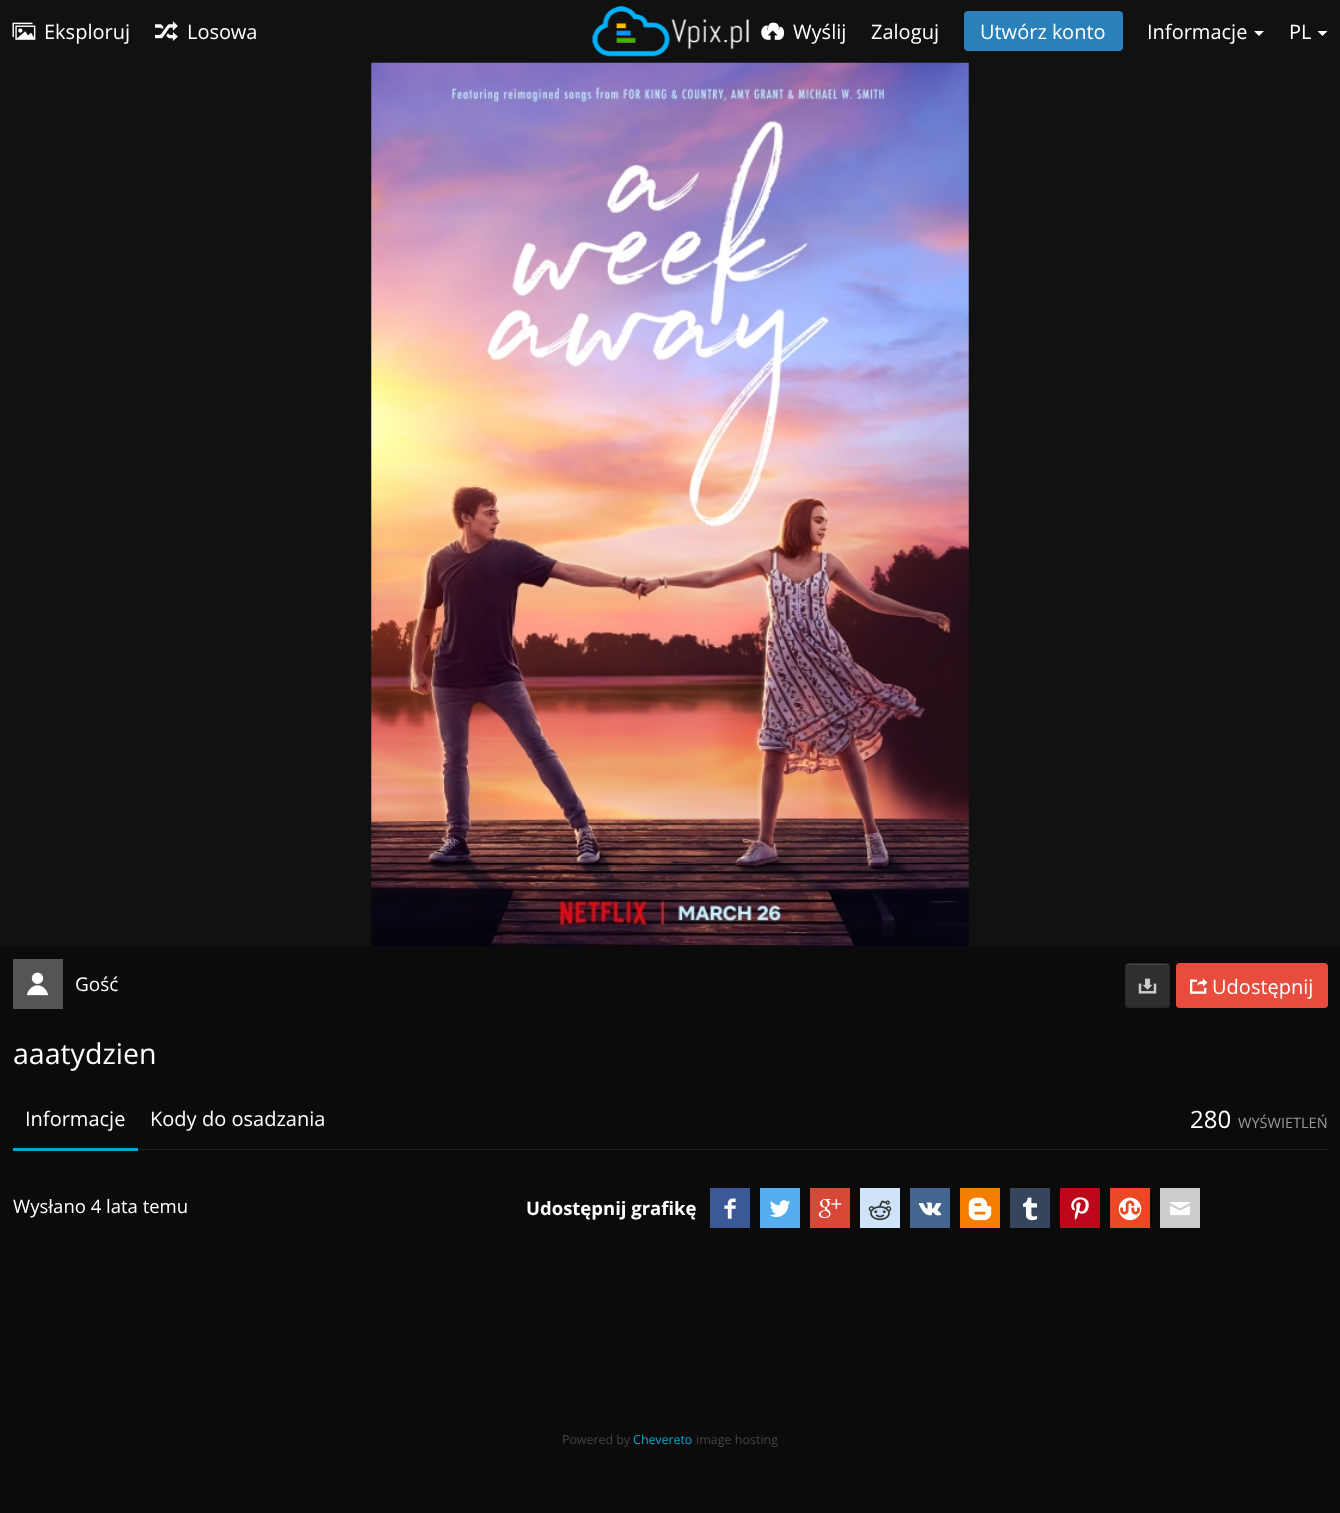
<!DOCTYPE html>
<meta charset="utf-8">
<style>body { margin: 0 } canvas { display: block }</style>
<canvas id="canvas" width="1340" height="1513"></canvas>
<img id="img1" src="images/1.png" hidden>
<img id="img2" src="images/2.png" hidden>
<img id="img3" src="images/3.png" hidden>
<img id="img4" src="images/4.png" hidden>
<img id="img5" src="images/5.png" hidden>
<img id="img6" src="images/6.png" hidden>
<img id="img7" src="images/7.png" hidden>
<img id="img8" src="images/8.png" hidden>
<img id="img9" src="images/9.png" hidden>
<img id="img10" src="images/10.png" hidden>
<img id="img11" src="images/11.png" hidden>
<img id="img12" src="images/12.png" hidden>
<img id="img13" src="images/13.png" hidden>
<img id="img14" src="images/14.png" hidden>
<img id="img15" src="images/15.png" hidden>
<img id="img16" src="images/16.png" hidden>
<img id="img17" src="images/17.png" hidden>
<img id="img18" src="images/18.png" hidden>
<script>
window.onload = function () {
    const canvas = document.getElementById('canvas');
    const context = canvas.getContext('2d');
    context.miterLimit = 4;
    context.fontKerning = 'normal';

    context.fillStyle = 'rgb(11, 11, 11)';
    context.fillRect(0, 0, 1340, 1513);
    context.fillStyle = 'rgb(17, 17, 17)';
    context.fillRect(0, 0, 1340, 946);
    context.drawImage(document.getElementById('img1'), 12, 22, 24, 18);
    context.drawImage(document.getElementById('img2'), 155, 21, 23, 20);
    context.drawImage(document.getElementById('img3'), 592, 6, 157, 51);
    context.drawImage(document.getElementById('img4'), 761, 22, 24, 18);
    context.fillStyle = 'rgb(42, 128, 185)';
    context.beginPath();
    context.roundRect(964, 11, 159, 40, 4);
    context.fill();
    context.fillStyle = 'rgb(255, 255, 255)';
    context.beginPath();
    context.moveTo(1254, 31);
    context.lineTo(1264, 31);
    context.lineTo(1259, 36);
    context.closePath();
    context.fill();
    context.beginPath();
    context.moveTo(1317.5, 31);
    context.lineTo(1327.5, 31);
    context.lineTo(1322.5, 36);
    context.closePath();
    context.fill();
    context.drawImage(document.getElementById('img5'), 371, 62, 598, 884);
    context.fillStyle = 'rgb(85, 85, 85)';
    context.fillRect(13, 959, 50, 50);
    context.drawImage(document.getElementById('img6'), 26, 972, 23, 24);
    context.fillStyle = 'rgb(47, 47, 47)';
    context.beginPath();
    context.roundRect(1125, 963, 45, 45, 4);
    context.fill();
    context.fillStyle = 'rgb(68, 68, 68)';
    context.beginPath();
    context.moveTo(1129, 965);
    context.lineTo(1166, 965);
    context.bezierCurveTo(1168, 965, 1169, 966, 1169, 968);
    context.bezierCurveTo(1169, 963, 1165, 964, 1160, 964);
    context.lineTo(1135, 964);
    context.bezierCurveTo(1130, 964, 1126, 963, 1126, 968);
    context.bezierCurveTo(1126, 966, 1127, 965, 1129, 965);
    context.closePath();
    context.fill();
    context.beginPath();
    context.moveTo(1168.5, 1006);
    context.lineTo(1166, 1007);
    context.lineTo(1129, 1007);
    context.lineTo(1126.5, 1006);
    context.strokeStyle = 'rgb(35, 35, 35)';
    context.lineWidth = 1.2;
    context.stroke();
    context.beginPath();
    context.moveTo(1126.5, 1006);
    context.bezierCurveTo(1124.5, 1004, 1125.5, 999, 1125.5, 997.5);
    context.lineTo(1125.5, 985);
    context.bezierCurveTo(1125.5, 958.5, 1121, 963, 1147.5, 963);
    context.bezierCurveTo(1174, 963, 1169.5, 958.5, 1169.5, 985);
    context.lineTo(1169.5, 997.5);
    context.bezierCurveTo(1169.5, 999, 1170.5, 1004, 1168.5, 1006);
    context.strokeStyle = 'rgba(0, 0, 0, 0.1)';
    context.stroke();
    context.drawImage(document.getElementById('img7'), 1138, 978, 19, 16);
    context.fillStyle = 'rgb(232, 76, 61)';
    context.beginPath();
    context.roundRect(1176, 963, 152, 45, 4);
    context.fill();
    context.drawImage(document.getElementById('img8'), 1190, 978, 18, 16);
    context.fillStyle = 'rgb(33, 33, 33)';
    context.fillRect(138, 1149, 1190, 1);
    context.fillStyle = 'rgb(0, 167, 218)';
    context.fillRect(13, 1148, 125, 3);
    context.fillStyle = 'rgb(59, 89, 152)';
    context.fillRect(710, 1188, 40, 40);
    context.drawImage(document.getElementById('img9'), 724, 1198, 12, 21);
    context.fillStyle = 'rgb(85, 172, 238)';
    context.fillRect(760, 1188, 40, 40);
    context.drawImage(document.getElementById('img10'), 769, 1200, 22, 17);
    context.fillStyle = 'rgb(215, 72, 54)';
    context.fillRect(810, 1188, 40, 40);
    context.drawImage(document.getElementById('img11'), 818, 1199, 24, 20);
    context.fillStyle = 'rgb(206, 227, 248)';
    context.fillRect(860, 1188, 40, 40);
    context.drawImage(document.getElementById('img12'), 868, 1200, 24, 21);
    context.fillStyle = 'rgb(69, 102, 142)';
    context.fillRect(910, 1188, 40, 40);
    context.drawImage(document.getElementById('img13'), 918, 1202, 24, 14);
    context.fillStyle = 'rgb(245, 125, 0)';
    context.fillRect(960, 1188, 40, 40);
    context.drawImage(document.getElementById('img14'), 968, 1197, 24, 24);
    context.fillStyle = 'rgb(53, 70, 92)';
    context.fillRect(1010, 1188, 40, 40);
    context.drawImage(document.getElementById('img15'), 1022, 1197, 16, 24);
    context.fillStyle = 'rgb(189, 8, 28)';
    context.fillRect(1060, 1188, 40, 40);
    context.drawImage(document.getElementById('img16'), 1071, 1197, 18, 23);
    context.fillStyle = 'rgb(235, 73, 36)';
    context.fillRect(1110, 1188, 40, 40);
    context.drawImage(document.getElementById('img17'), 1118, 1197, 24, 24);
    context.fillStyle = 'rgb(204, 204, 204)';
    context.fillRect(1160, 1188, 40, 40);
    context.drawImage(document.getElementById('img18'), 1169, 1202, 22, 14);
    context.font = '20px Open Sans';
    context.fillStyle = 'rgb(255, 255, 255)';
    context.fillText('Eksploruj', 44, 39);
    context.fillText('Losowa', 187, 39);
    context.fillText('Wyślij', 793, 39);
    context.fillText('Zaloguj', 871, 39);
    context.fillText('Utwórz konto', 980, 39);
    context.fillText('Informacje', 1147, 39);
    context.fillText('PL', 1289, 39);
    context.font = '19px Open Sans';
    context.fillText('Gość', 75, 991);
    context.font = '20px Open Sans';
    context.fillText('Udostępnij', 1212, 994);
    context.font = '28.5px Open Sans';
    context.fillText('aaatydzien', 13, 1064);
    context.font = '20px Open Sans';
    context.fillText('Informacje', 25, 1126);
    context.fillText('Kody do osadzania', 150, 1126);
    context.font = '24px Open Sans';
    context.fillText('280', 1190, 1128);
    context.font = '14.5px Open Sans';
    context.fillStyle = 'rgb(153, 153, 153)';
    context.fillText('WYŚWIETLEŃ', 1238, 1128);
    context.font = '18.5px Open Sans';
    context.fillStyle = 'rgb(255, 255, 255)';
    context.fillText('Wysłano 4 lata temu', 13, 1213);
    context.font = 'bold 18.5px Open Sans';
    context.fillText('Udostępnij grafikę', 526, 1215);
    context.font = '12.5px Open Sans';
    context.fillStyle = 'rgb(68, 68, 68)';
    context.fillText('Powered by', 562, 1444);
    context.fillStyle = 'rgb(0, 167, 218)';
    context.fillText('Chevereto', 633, 1444);
    context.fillStyle = 'rgb(68, 68, 68)';
    context.fillText('image hosting', 696, 1444);
};
</script>
